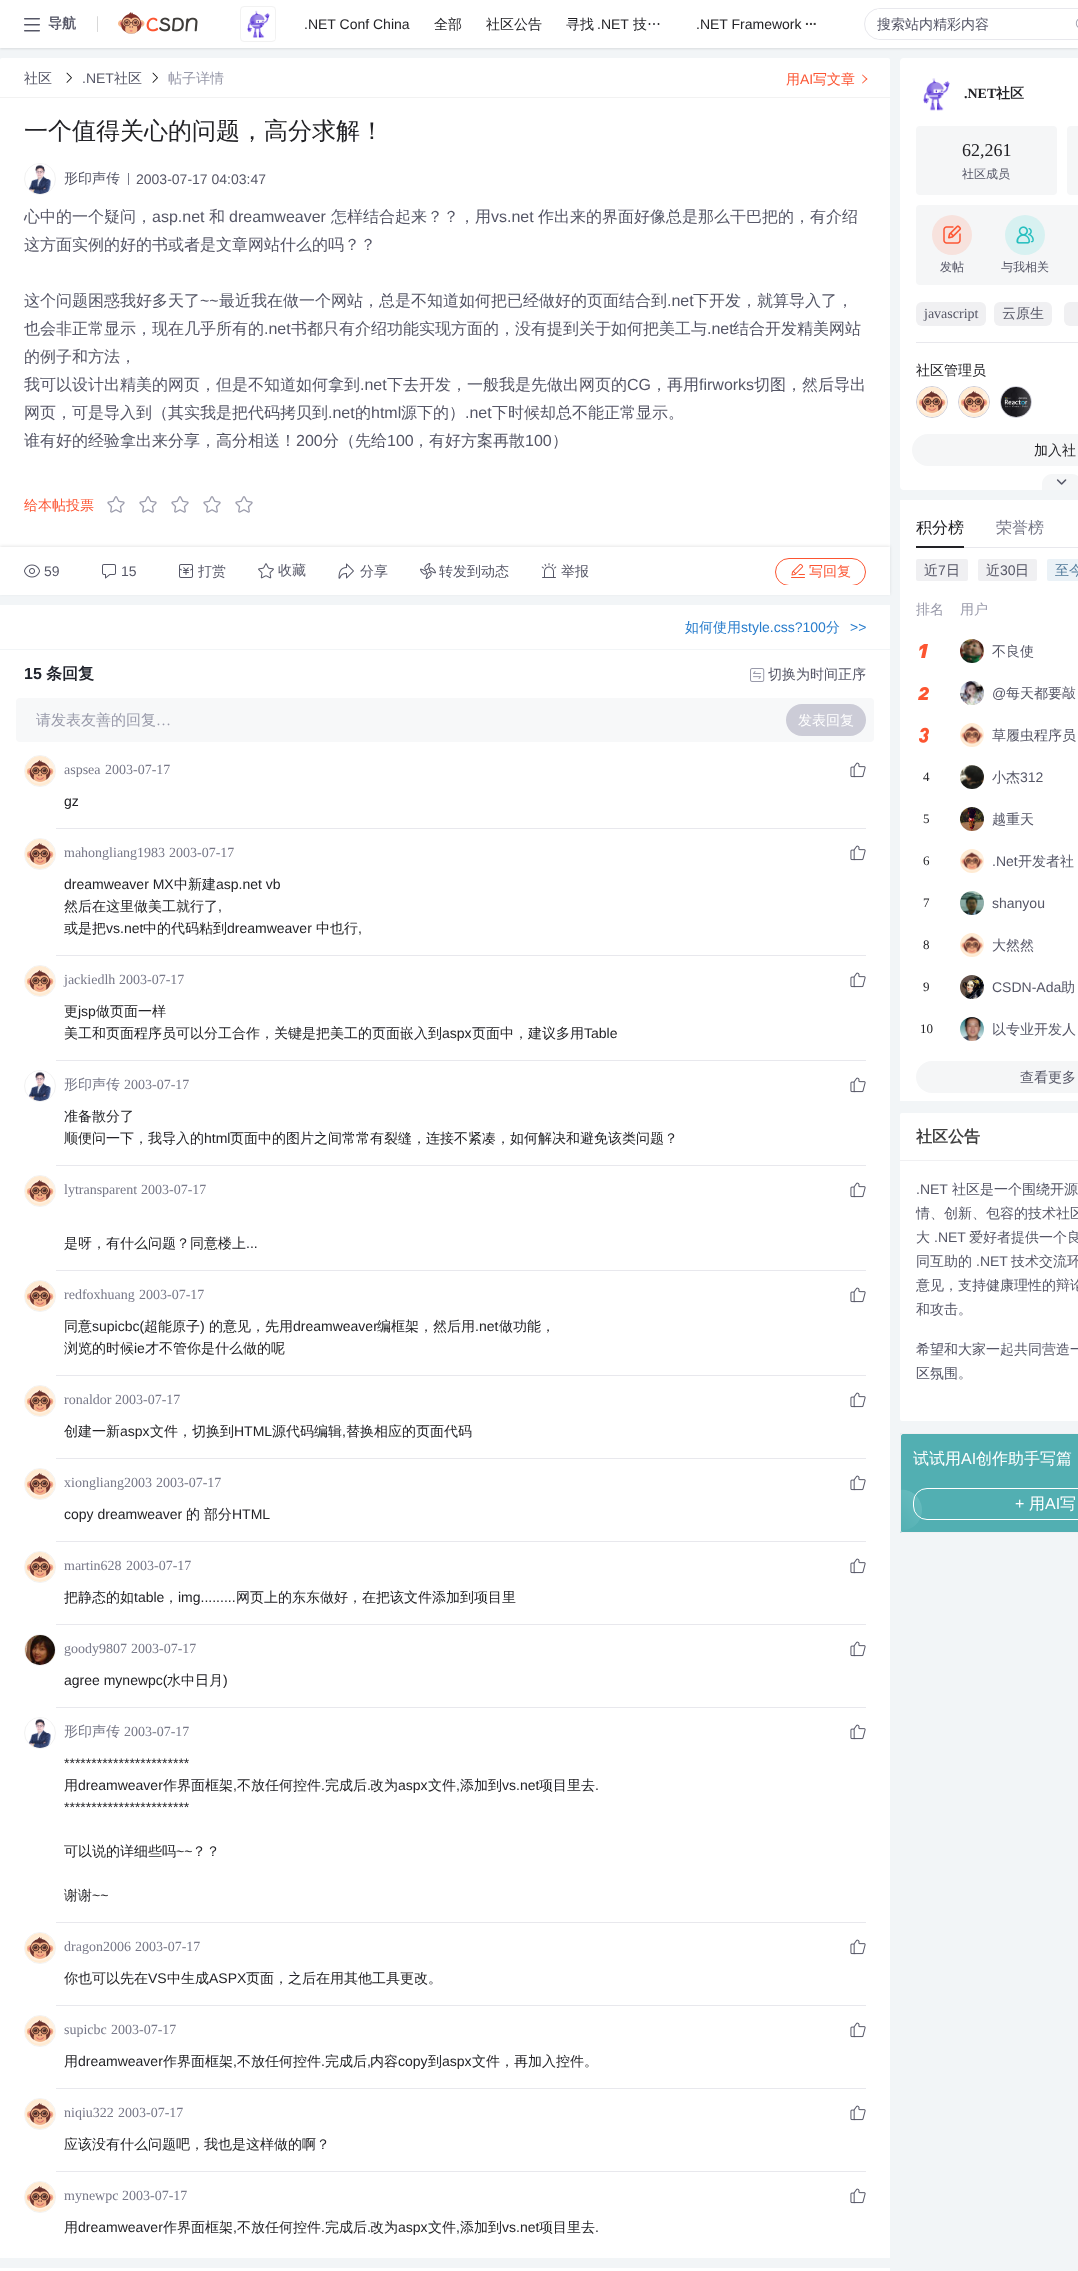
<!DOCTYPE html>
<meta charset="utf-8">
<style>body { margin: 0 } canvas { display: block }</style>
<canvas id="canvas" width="1078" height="2271"></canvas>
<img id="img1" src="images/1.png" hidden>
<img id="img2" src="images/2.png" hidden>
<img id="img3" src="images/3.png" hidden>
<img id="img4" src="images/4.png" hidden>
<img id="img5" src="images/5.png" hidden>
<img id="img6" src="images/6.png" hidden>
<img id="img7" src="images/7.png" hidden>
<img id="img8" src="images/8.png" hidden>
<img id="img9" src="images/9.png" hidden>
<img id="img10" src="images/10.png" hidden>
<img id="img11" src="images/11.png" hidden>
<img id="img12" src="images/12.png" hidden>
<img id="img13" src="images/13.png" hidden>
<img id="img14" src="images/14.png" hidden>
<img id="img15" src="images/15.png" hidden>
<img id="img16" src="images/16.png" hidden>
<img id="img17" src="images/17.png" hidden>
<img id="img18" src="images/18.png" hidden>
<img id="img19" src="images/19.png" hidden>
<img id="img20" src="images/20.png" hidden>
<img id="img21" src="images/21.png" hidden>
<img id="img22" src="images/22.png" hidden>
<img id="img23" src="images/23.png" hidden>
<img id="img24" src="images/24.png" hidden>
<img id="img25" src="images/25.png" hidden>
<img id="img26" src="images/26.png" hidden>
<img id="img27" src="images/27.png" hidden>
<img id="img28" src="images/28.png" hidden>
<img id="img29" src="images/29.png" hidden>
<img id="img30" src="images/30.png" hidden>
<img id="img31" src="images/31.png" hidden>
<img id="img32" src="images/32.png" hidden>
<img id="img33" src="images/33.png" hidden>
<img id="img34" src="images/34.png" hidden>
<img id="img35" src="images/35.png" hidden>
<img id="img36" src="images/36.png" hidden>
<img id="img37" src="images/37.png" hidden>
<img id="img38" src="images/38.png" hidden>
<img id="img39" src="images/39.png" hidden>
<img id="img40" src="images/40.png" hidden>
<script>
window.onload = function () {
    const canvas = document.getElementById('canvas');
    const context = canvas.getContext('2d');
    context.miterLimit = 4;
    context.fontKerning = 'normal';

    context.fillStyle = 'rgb(242, 245, 247)';
    context.fillRect(0, 0, 1078, 2271);
    context.fillStyle = 'rgba(0, 0, 0, 0.1)';
    context.filter = 'blur(1px)';
    context.beginPath();
    context.rect(0, 1, 1078, 48);
    context.fill();
    context.filter = 'none';
    context.fillStyle = 'rgb(255, 255, 255)';
    context.fillRect(0, 0, 1078, 48);
    context.drawImage(document.getElementById('img1'), 24, 18, 16, 14);
    context.fillStyle = 'rgb(216, 216, 216)';
    context.beginPath();
    context.roundRect(97, 16, 1, 16, 0.5);
    context.fill();
    context.drawImage(document.getElementById('img2'), 118, 12, 80, 22);
    context.beginPath();
    context.roundRect(240.5, 6.5, 35, 35, 3.5);
    context.strokeStyle = 'rgb(242, 242, 242)';
    context.stroke();
    context.drawImage(document.getElementById('img3'), 247, 10, 28, 30);
    context.beginPath();
    context.roundRect(864.5, 8.5, 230, 31, 15.5);
    context.strokeStyle = 'rgb(232, 232, 237)';
    context.stroke();
    context.save();
    context.beginPath();
    context.roundRect(865, 9, 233, 30, 15);
    context.clip();
    context.fillStyle = 'rgb(255, 255, 255)';
    context.fillRect(877, 9, 195, 30);
    context.restore();
    context.drawImage(document.getElementById('img4'), 1075, 19, 3, 9);
    context.fillStyle = 'rgb(255, 255, 255)';
    context.beginPath();
    context.roundRect(0, 58, 890, 40, [2, 2, 0, 0]);
    context.fill();
    context.fillStyle = 'rgb(242, 242, 242)';
    context.fillRect(0, 97, 890, 1);
    context.drawImage(document.getElementById('img5'), 66, 72, 6, 11);
    context.drawImage(document.getElementById('img5'), 152, 72, 6, 11);
    context.fillStyle = 'rgb(252, 85, 49)';
    context.beginPath();
    context.moveTo(862, 75);
    context.lineTo(862.5, 74.5);
    context.lineTo(867.5, 79);
    context.lineTo(866.5, 79.5);
    context.closePath();
    context.fill();
    context.beginPath();
    context.moveTo(862, 83);
    context.lineTo(866.5, 78.5);
    context.lineTo(867.5, 79);
    context.lineTo(862.5, 83.5);
    context.closePath();
    context.fill();
    context.fillStyle = 'rgb(255, 255, 255)';
    context.fillRect(0, 98, 890, 449);
    context.beginPath();
    context.arc(40, 179, 15.5, 0, 2 * Math.PI);
    context.strokeStyle = 'rgb(242, 242, 242)';
    context.stroke();
    context.drawImage(document.getElementById('img6'), 28, 164, 23, 30);
    context.fillStyle = 'rgb(119, 120, 136)';
    context.fillRect(128, 173, 1, 12);
    context.drawImage(document.getElementById('img7'), 107, 496, 18, 17);
    context.drawImage(document.getElementById('img7'), 139, 496, 18, 17);
    context.drawImage(document.getElementById('img7'), 171, 496, 18, 17);
    context.drawImage(document.getElementById('img7'), 203, 496, 18, 17);
    context.drawImage(document.getElementById('img7'), 235, 496, 18, 17);
    context.fillStyle = 'rgba(18, 18, 18, 0.1)';
    context.filter = 'blur(1.5px)';
    context.beginPath();
    context.rect(0, 546, 890, 48);
    context.fill();
    context.filter = 'none';
    context.fillStyle = 'rgb(255, 255, 255)';
    context.fillRect(0, 547, 890, 48);
    context.drawImage(document.getElementById('img8'), 24, 564, 16, 14);
    context.drawImage(document.getElementById('img9'), 102, 564, 14, 15);
    context.drawImage(document.getElementById('img10'), 179, 564, 14, 14);
    context.drawImage(document.getElementById('img11'), 258, 563, 16, 16);
    context.drawImage(document.getElementById('img12'), 338, 563, 16, 16);
    context.drawImage(document.getElementById('img13'), 420, 563, 16, 16);
    context.drawImage(document.getElementById('img14'), 541, 563, 16, 15);
    context.save();
    context.beginPath();
    context.rect(0, 557, 890, 28);
    context.clip();
    context.beginPath();
    context.roundRect(775.5, 558.5, 90, 27, 13.5);
    context.strokeStyle = 'rgb(252, 85, 49)';
    context.stroke();
    context.restore();
    context.drawImage(document.getElementById('img15'), 791, 563, 14, 15);
    context.fillRect(0, 605, 890, 44);
    context.fillRect(0, 650, 890, 1608);
    context.drawImage(document.getElementById('img16'), 750, 668, 15, 14);
    context.fillStyle = 'rgb(247, 248, 249)';
    context.beginPath();
    context.roundRect(16, 698, 858, 44, 4);
    context.fill();
    context.fillStyle = 'rgb(204, 204, 215)';
    context.beginPath();
    context.roundRect(786, 704, 80, 32, 16);
    context.fill();
    context.beginPath();
    context.arc(40, 771, 15.5, 0, 2 * Math.PI);
    context.stroke();
    context.drawImage(document.getElementById('img17'), 25, 756, 30, 30);
    context.drawImage(document.getElementById('img18'), 850, 762, 16, 16);
    context.fillStyle = 'rgb(232, 232, 237)';
    context.fillRect(56, 828, 810, 1);
    context.beginPath();
    context.arc(40, 854, 15.5, 0, 2 * Math.PI);
    context.stroke();
    context.drawImage(document.getElementById('img19'), 25, 839, 30, 30);
    context.drawImage(document.getElementById('img18'), 850, 845, 16, 16);
    context.fillRect(56, 955, 810, 1);
    context.beginPath();
    context.arc(40, 981, 15.5, 0, 2 * Math.PI);
    context.stroke();
    context.drawImage(document.getElementById('img19'), 25, 966, 30, 30);
    context.drawImage(document.getElementById('img18'), 850, 972, 16, 16);
    context.fillRect(56, 1060, 810, 1);
    context.beginPath();
    context.arc(40, 1086, 15.5, 0, 2 * Math.PI);
    context.stroke();
    context.drawImage(document.getElementById('img6'), 28, 1071, 23, 30);
    context.drawImage(document.getElementById('img18'), 850, 1077, 16, 16);
    context.fillRect(56, 1165, 810, 1);
    context.beginPath();
    context.arc(40, 1191, 15.5, 0, 2 * Math.PI);
    context.stroke();
    context.drawImage(document.getElementById('img19'), 25, 1176, 30, 30);
    context.drawImage(document.getElementById('img18'), 850, 1182, 16, 16);
    context.fillRect(56, 1270, 810, 1);
    context.beginPath();
    context.arc(40, 1296, 15.5, 0, 2 * Math.PI);
    context.stroke();
    context.drawImage(document.getElementById('img19'), 25, 1281, 30, 30);
    context.drawImage(document.getElementById('img18'), 850, 1287, 16, 16);
    context.fillRect(56, 1375, 810, 1);
    context.beginPath();
    context.arc(40, 1401, 15.5, 0, 2 * Math.PI);
    context.stroke();
    context.drawImage(document.getElementById('img19'), 25, 1386, 30, 30);
    context.drawImage(document.getElementById('img18'), 850, 1392, 16, 16);
    context.fillRect(56, 1458, 810, 1);
    context.beginPath();
    context.arc(40, 1484, 15.5, 0, 2 * Math.PI);
    context.stroke();
    context.drawImage(document.getElementById('img19'), 25, 1469, 30, 30);
    context.drawImage(document.getElementById('img18'), 850, 1475, 16, 16);
    context.fillRect(56, 1541, 810, 1);
    context.beginPath();
    context.arc(40, 1567, 15.5, 0, 2 * Math.PI);
    context.stroke();
    context.drawImage(document.getElementById('img19'), 25, 1552, 30, 30);
    context.drawImage(document.getElementById('img18'), 850, 1558, 16, 16);
    context.fillRect(56, 1624, 810, 1);
    context.beginPath();
    context.arc(40, 1650, 15.5, 0, 2 * Math.PI);
    context.stroke();
    context.drawImage(document.getElementById('img20'), 25, 1635, 30, 30);
    context.drawImage(document.getElementById('img18'), 850, 1641, 16, 16);
    context.fillRect(56, 1707, 810, 1);
    context.beginPath();
    context.arc(40, 1733, 15.5, 0, 2 * Math.PI);
    context.stroke();
    context.drawImage(document.getElementById('img6'), 28, 1718, 23, 30);
    context.drawImage(document.getElementById('img18'), 850, 1724, 16, 16);
    context.fillRect(56, 1922, 810, 1);
    context.beginPath();
    context.arc(40, 1948, 15.5, 0, 2 * Math.PI);
    context.stroke();
    context.drawImage(document.getElementById('img19'), 25, 1933, 30, 30);
    context.drawImage(document.getElementById('img18'), 850, 1939, 16, 16);
    context.fillRect(56, 2005, 810, 1);
    context.beginPath();
    context.arc(40, 2031, 15.5, 0, 2 * Math.PI);
    context.stroke();
    context.drawImage(document.getElementById('img21'), 25, 2016, 30, 30);
    context.drawImage(document.getElementById('img18'), 850, 2022, 16, 16);
    context.fillRect(56, 2088, 810, 1);
    context.beginPath();
    context.arc(40, 2114, 15.5, 0, 2 * Math.PI);
    context.stroke();
    context.drawImage(document.getElementById('img22'), 25, 2099, 30, 30);
    context.drawImage(document.getElementById('img18'), 850, 2105, 16, 16);
    context.fillRect(56, 2171, 810, 1);
    context.beginPath();
    context.arc(40, 2197, 15.5, 0, 2 * Math.PI);
    context.stroke();
    context.drawImage(document.getElementById('img19'), 25, 2182, 30, 30);
    context.drawImage(document.getElementById('img18'), 850, 2188, 16, 16);
    context.fillStyle = 'rgb(255, 255, 255)';
    context.fillRect(0, 2268, 890, 3);
    context.beginPath();
    context.roundRect(900, 58, 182, 432, 4);
    context.fill();
    context.drawImage(document.getElementById('img23'), 923, 78, 27, 33);
    context.fillStyle = 'rgb(245, 246, 247)';
    context.beginPath();
    context.roundRect(916, 126, 141, 69, 4);
    context.fill();
    context.beginPath();
    context.roundRect(1067, 126, 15, 69, 4);
    context.fill();
    context.beginPath();
    context.roundRect(916, 205, 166, 80, 4);
    context.fill();
    context.fillStyle = 'rgb(247, 226, 221)';
    context.beginPath();
    context.arc(952, 235, 20, 0, 2 * Math.PI);
    context.fill();
    context.drawImage(document.getElementById('img24'), 943, 225, 19, 19);
    context.fillStyle = 'rgb(215, 241, 241)';
    context.beginPath();
    context.arc(1025, 235, 20, 0, 2 * Math.PI);
    context.fill();
    context.drawImage(document.getElementById('img25'), 1016, 226, 18, 18);
    context.fillStyle = 'rgb(240, 240, 242)';
    context.beginPath();
    context.roundRect(916, 302, 70, 24, 6);
    context.fill();
    context.beginPath();
    context.roundRect(994, 302, 58, 24, 6);
    context.fill();
    context.beginPath();
    context.roundRect(1064, 302, 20, 24, 6);
    context.fill();
    context.fillStyle = 'rgb(232, 232, 237)';
    context.fillRect(916, 342, 162, 1);
    context.beginPath();
    context.arc(932, 402, 15.5, 0, 2 * Math.PI);
    context.strokeStyle = 'rgb(204, 204, 216)';
    context.stroke();
    context.drawImage(document.getElementById('img26'), 917, 387, 30, 30);
    context.beginPath();
    context.arc(974, 402, 15.5, 0, 2 * Math.PI);
    context.stroke();
    context.drawImage(document.getElementById('img26'), 959, 387, 30, 30);
    context.beginPath();
    context.arc(1016, 402, 15.5, 0, 2 * Math.PI);
    context.stroke();
    context.drawImage(document.getElementById('img27'), 1001, 387, 30, 30);
    context.fillStyle = 'rgb(245, 246, 247)';
    context.beginPath();
    context.roundRect(912, 434, 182, 32, 16);
    context.fill();
    context.beginPath();
    context.moveTo(1052, 474);
    context.lineTo(1072, 474);
    context.bezierCurveTo(1077.5, 474, 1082, 478.5, 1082, 484);
    context.lineTo(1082, 490);
    context.lineTo(1042, 490);
    context.lineTo(1042, 484);
    context.bezierCurveTo(1042, 478.5, 1046.5, 474, 1052, 474);
    context.closePath();
    context.fill();
    context.drawImage(document.getElementById('img28'), 1056, 479, 11, 6);
    context.fillStyle = 'rgb(255, 255, 255)';
    context.fillRect(900, 500, 178, 601);
    context.fillStyle = 'rgb(34, 34, 38)';
    context.fillRect(916, 546, 48, 2);
    context.fillStyle = 'rgb(232, 232, 237)';
    context.fillRect(964, 547, 114, 1);
    context.fillStyle = 'rgb(240, 240, 242)';
    context.beginPath();
    context.roundRect(916, 559, 52, 22, 2);
    context.fill();
    context.beginPath();
    context.roundRect(978, 559, 59, 22, 2);
    context.fill();
    context.fillStyle = 'rgb(235, 242, 247)';
    context.beginPath();
    context.roundRect(1047, 559, 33, 22, 2);
    context.fill();
    context.drawImage(document.getElementById('img29'), 919, 644, 9, 14);
    context.drawImage(document.getElementById('img30'), 960, 639, 24, 24);
    context.drawImage(document.getElementById('img31'), 918, 687, 11, 13);
    context.drawImage(document.getElementById('img32'), 960, 681, 24, 24);
    context.drawImage(document.getElementById('img33'), 919, 727, 10, 16);
    context.drawImage(document.getElementById('img34'), 960, 723, 24, 24);
    context.drawImage(document.getElementById('img35'), 960, 765, 24, 24);
    context.drawImage(document.getElementById('img36'), 960, 807, 24, 24);
    context.drawImage(document.getElementById('img34'), 960, 849, 24, 24);
    context.drawImage(document.getElementById('img37'), 960, 891, 24, 24);
    context.drawImage(document.getElementById('img34'), 960, 933, 24, 24);
    context.drawImage(document.getElementById('img38'), 960, 975, 24, 24);
    context.drawImage(document.getElementById('img39'), 960, 1017, 24, 24);
    context.fillStyle = 'rgb(245, 246, 247)';
    context.beginPath();
    context.roundRect(916, 1061, 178, 32, 16);
    context.fill();
    context.fillStyle = 'rgb(255, 255, 255)';
    context.beginPath();
    context.roundRect(900, 1113, 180, 308, 2);
    context.fill();
    context.fillStyle = 'rgb(240, 240, 242)';
    context.fillRect(900, 1160, 178, 1);
    context.drawImage(document.getElementById('img40'), 900, 1433, 178, 100);
    context.beginPath();
    context.roundRect(900.5, 1433.5, 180, 99, 1.5);
    context.strokeStyle = 'rgb(240, 240, 242)';
    context.stroke();
    context.beginPath();
    context.roundRect(913.5, 1488.5, 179, 31, 13.5);
    context.strokeStyle = 'rgb(255, 255, 255)';
    context.stroke();
    context.font = 'bold 14px WenQuanYi Zen Hei';
    context.fillStyle = 'rgb(85, 86, 102)';
    context.fillText('导航', 48, 28);
    context.font = '14px Liberation Sans';
    context.fillStyle = 'rgb(34, 34, 38)';
    context.fillText('.NET Conf China', 304, 29);
    context.font = '500 14px WenQuanYi Zen Hei';
    context.fillText('全部', 434, 29);
    context.fillText('社区公告', 486, 29);
    context.fillText('寻找', 566, 29);
    context.font = '14px Liberation Sans';
    context.fillText('.NET', 597, 29);
    context.font = '500 14px WenQuanYi Zen Hei';
    context.fillText('技…', 633, 29);
    context.font = '14px Liberation Sans';
    context.fillText('.NET Framework', 696, 29);
    context.font = 'bold 14px Liberation Sans';
    context.fillStyle = 'rgb(64, 64, 64)';
    context.fillText('...', 805, 25);
    context.font = '500 14px WenQuanYi Zen Hei';
    context.fillStyle = 'rgb(85, 86, 102)';
    context.fillText('搜索站内精彩内容', 877, 29);
    context.fillText('社区', 24, 83);
    context.font = '14px Liberation Sans';
    context.fillText('.NET', 82, 83);
    context.font = '500 14px WenQuanYi Zen Hei';
    context.fillText('社区', 114, 83);
    context.fillStyle = 'rgb(153, 154, 170)';
    context.fillText('帖子详情', 168, 83);
    context.fillStyle = 'rgb(252, 85, 51)';
    context.fillText('用', 786, 84);
    context.font = '14px Liberation Sans';
    context.fillText('AI', 800, 84);
    context.font = '500 14px WenQuanYi Zen Hei';
    context.fillText('写文章', 813, 84);
    context.font = '500 24px WenQuanYi Zen Hei';
    context.fillStyle = 'rgb(34, 34, 38)';
    context.fillText('一个值得关心的问题，高分求解！', 24, 139);
    context.font = '500 14px WenQuanYi Zen Hei';
    context.fillStyle = 'rgb(85, 86, 102)';
    context.fillText('形印声传', 64, 183);
    context.font = '14px Liberation Sans';
    context.fillText('2003-07-17 04:03:47', 136, 184);
    context.font = '500 16px WenQuanYi Zen Hei';
    context.fillText('心中的一个疑问，', 24, 222);
    context.font = '16px Liberation Sans';
    context.fillText('asp.net', 152, 222);
    context.font = '500 16px WenQuanYi Zen Hei';
    context.fillText('和', 209, 222);
    context.font = '16px Liberation Sans';
    context.fillText('dreamweaver', 229, 222);
    context.font = '500 16px WenQuanYi Zen Hei';
    context.fillText('怎样结合起来？？，用', 331, 222);
    context.font = '16px Liberation Sans';
    context.fillText('vs.net', 491, 222);
    context.font = '500 16px WenQuanYi Zen Hei';
    context.fillText('作出来的界面好像总是那么干巴把的，有介绍', 538, 222);
    context.fillText('这方面实例的好的书或者是文章网站什么的吗？？', 24, 250);
    context.fillText('这个问题困惑我好多天了', 24, 306);
    context.font = '16px Liberation Sans';
    context.fillText('~~', 200, 306);
    context.font = '500 16px WenQuanYi Zen Hei';
    context.fillText('最近我在做一个网站，总是不知道如何把已经做好的页面结合到', 219, 306);
    context.font = '16px Liberation Sans';
    context.fillText('.net', 667, 306);
    context.font = '500 16px WenQuanYi Zen Hei';
    context.fillText('下开发，就算导入了，', 693, 306);
    context.fillText('也会非正常显示，现在几乎所有的', 24, 334);
    context.font = '16px Liberation Sans';
    context.fillText('.net', 264, 334);
    context.font = '500 16px WenQuanYi Zen Hei';
    context.fillText('书都只有介绍功能实现方面的，没有提到关于如何把美工与', 291, 334);
    context.font = '16px Liberation Sans';
    context.fillText('.net', 707, 334);
    context.font = '500 16px WenQuanYi Zen Hei';
    context.fillText('结合开发精美网站', 733, 334);
    context.fillText('的例子和方法，', 24, 362);
    context.fillText('我可以设计出精美的网页，但是不知道如何拿到', 24, 390);
    context.font = '16px Liberation Sans';
    context.fillText('.net', 360, 390);
    context.font = '500 16px WenQuanYi Zen Hei';
    context.fillText('下去开发，一般我是先做出网页的', 387, 390);
    context.font = '16px Liberation Sans';
    context.fillText('CG', 627, 390);
    context.font = '500 16px WenQuanYi Zen Hei';
    context.fillText('，再用', 651, 390);
    context.font = '16px Liberation Sans';
    context.fillText('firworks', 699, 390);
    context.font = '500 16px WenQuanYi Zen Hei';
    context.fillText('切图，然后导出', 754, 390);
    context.fillText('网页，可是导入到（其实我是把代码拷贝到', 24, 418);
    context.font = '16px Liberation Sans';
    context.fillText('.net', 328, 418);
    context.font = '500 16px WenQuanYi Zen Hei';
    context.fillText('的', 355, 418);
    context.font = '16px Liberation Sans';
    context.fillText('html', 371, 418);
    context.font = '500 16px WenQuanYi Zen Hei';
    context.fillText('源下的）', 401, 418);
    context.font = '16px Liberation Sans';
    context.fillText('.net', 465, 418);
    context.font = '500 16px WenQuanYi Zen Hei';
    context.fillText('下时候却总不能正常显示。', 492, 418);
    context.fillText('谁有好的经验拿出来分享，高分相送！', 24, 446);
    context.font = '16px Liberation Sans';
    context.fillText('200', 296, 446);
    context.font = '500 16px WenQuanYi Zen Hei';
    context.fillText('分（先给', 323, 446);
    context.font = '16px Liberation Sans';
    context.fillText('100', 387, 446);
    context.font = '500 16px WenQuanYi Zen Hei';
    context.fillText('，有好方案再散', 413, 446);
    context.font = '16px Liberation Sans';
    context.fillText('100', 525, 446);
    context.font = '500 16px WenQuanYi Zen Hei';
    context.fillText('）', 552, 446);
    context.font = '500 14px WenQuanYi Zen Hei';
    context.fillStyle = 'rgb(252, 85, 51)';
    context.fillText('给本帖投票', 24, 510);
    context.font = '14px Liberation Sans';
    context.fillStyle = 'rgb(85, 86, 102)';
    context.fillText('59', 44, 576);
    context.fillText('15', 121, 576);
    context.font = '500 14px WenQuanYi Zen Hei';
    context.fillText('打赏', 198, 576);
    context.fillText('收藏', 278, 575);
    context.fillText('分享', 360, 576);
    context.fillText('转发到动态', 439, 576);
    context.fillText('举报', 561, 576);
    context.fillStyle = 'rgb(252, 85, 51)';
    context.fillText('写回复', 809, 576);
    context.fillStyle = 'rgb(39, 124, 204)';
    context.fillText('如何使用', 685, 632);
    context.font = '14px Liberation Sans';
    context.fillText('style.css?100', 741, 632);
    context.font = '500 14px WenQuanYi Zen Hei';
    context.fillText('分', 826, 632);
    context.font = '14px Liberation Sans';
    context.fillText('>>', 850, 632);
    context.font = 'bold 16px Liberation Sans';
    context.fillStyle = 'rgb(32, 35, 44)';
    context.fillText('15', 24, 679);
    context.font = 'bold 16px WenQuanYi Zen Hei';
    context.fillText('条回复', 46, 679);
    context.font = '500 14px WenQuanYi Zen Hei';
    context.fillStyle = 'rgb(85, 86, 102)';
    context.fillText('切换为时间正序', 768, 679);
    context.font = '500 15px WenQuanYi Zen Hei';
    context.fillStyle = 'rgb(153, 154, 170)';
    context.fillText('请发表友善的回复', 36, 725);
    context.font = '15px Liberation Serif';
    context.fillText('…', 156, 725);
    context.font = '500 14px WenQuanYi Zen Hei';
    context.fillStyle = 'rgb(255, 255, 255)';
    context.fillText('发表回复', 798, 725);
    context.font = '14px Liberation Serif';
    context.fillStyle = 'rgb(119, 120, 136)';
    context.fillText('aspsea', 64, 774);
    context.fillText('2003-07-17', 105, 774);
    context.font = '14px Liberation Sans';
    context.fillStyle = 'rgb(34, 34, 38)';
    context.fillText('gz', 64, 806);
    context.font = '14px Liberation Serif';
    context.fillStyle = 'rgb(119, 120, 136)';
    context.fillText('mahongliang1983', 64, 857);
    context.fillText('2003-07-17', 169, 857);
    context.font = '14px Liberation Sans';
    context.fillStyle = 'rgb(34, 34, 38)';
    context.fillText('dreamweaver MX', 64, 889);
    context.font = '500 14px WenQuanYi Zen Hei';
    context.fillText('中新建', 174, 889);
    context.font = '14px Liberation Sans';
    context.fillText('asp.net vb', 216, 889);
    context.font = '500 14px WenQuanYi Zen Hei';
    context.fillText('然后在这里做美工就行了', 64, 911);
    context.font = '14px Liberation Sans';
    context.fillText(',', 218, 911);
    context.font = '500 14px WenQuanYi Zen Hei';
    context.fillText('或是把', 64, 933);
    context.font = '14px Liberation Sans';
    context.fillText('vs.net', 106, 933);
    context.font = '500 14px WenQuanYi Zen Hei';
    context.fillText('中的代码粘到', 143, 933);
    context.font = '14px Liberation Sans';
    context.fillText('dreamweaver', 227, 933);
    context.font = '500 14px WenQuanYi Zen Hei';
    context.fillText('中也行', 316, 933);
    context.font = '14px Liberation Sans';
    context.fillText(',', 358, 933);
    context.font = '14px Liberation Serif';
    context.fillStyle = 'rgb(119, 120, 136)';
    context.fillText('jackiedlh', 64, 984);
    context.fillText('2003-07-17', 119, 984);
    context.font = '500 14px WenQuanYi Zen Hei';
    context.fillStyle = 'rgb(34, 34, 38)';
    context.fillText('更', 64, 1016);
    context.font = '14px Liberation Sans';
    context.fillText('jsp', 78, 1016);
    context.font = '500 14px WenQuanYi Zen Hei';
    context.fillText('做页面一样', 96, 1016);
    context.fillText('美工和页面程序员可以分工合作，关键是把美工的页面嵌入到', 64, 1038);
    context.font = '14px Liberation Sans';
    context.fillText('aspx', 442, 1038);
    context.font = '500 14px WenQuanYi Zen Hei';
    context.fillText('页面中，建议多用', 472, 1038);
    context.font = '14px Liberation Sans';
    context.fillText('Table', 584, 1038);
    context.font = '500 14px WenQuanYi Zen Hei';
    context.fillStyle = 'rgb(119, 120, 136)';
    context.fillText('形印声传', 64, 1089);
    context.font = '14px Liberation Serif';
    context.fillText('2003-07-17', 124, 1089);
    context.font = '500 14px WenQuanYi Zen Hei';
    context.fillStyle = 'rgb(34, 34, 38)';
    context.fillText('准备散分了', 64, 1121);
    context.fillText('顺便问一下，我导入的', 64, 1143);
    context.font = '14px Liberation Sans';
    context.fillText('html', 204, 1143);
    context.font = '500 14px WenQuanYi Zen Hei';
    context.fillText('页面中的图片之间常常有裂缝，连接不紧凑，如何解决和避免该类问题？', 230, 1143);
    context.font = '14px Liberation Serif';
    context.fillStyle = 'rgb(119, 120, 136)';
    context.fillText('lytransparent', 64, 1194);
    context.fillText('2003-07-17', 141, 1194);
    context.font = '500 14px WenQuanYi Zen Hei';
    context.fillStyle = 'rgb(34, 34, 38)';
    context.fillText('是呀，有什么问题？同意楼上', 64, 1248);
    context.font = '14px Liberation Sans';
    context.fillText('...', 246, 1248);
    context.font = '14px Liberation Serif';
    context.fillStyle = 'rgb(119, 120, 136)';
    context.fillText('redfoxhuang', 64, 1299);
    context.fillText('2003-07-17', 139, 1299);
    context.font = '500 14px WenQuanYi Zen Hei';
    context.fillStyle = 'rgb(34, 34, 38)';
    context.fillText('同意', 64, 1331);
    context.font = '14px Liberation Sans';
    context.fillText('supicbc(', 92, 1331);
    context.font = '500 14px WenQuanYi Zen Hei';
    context.fillText('超能原子', 144, 1331);
    context.font = '14px Liberation Sans';
    context.fillText(')', 200, 1331);
    context.font = '500 14px WenQuanYi Zen Hei';
    context.fillText('的意见，先用', 209, 1331);
    context.font = '14px Liberation Sans';
    context.fillText('dreamweaver', 293, 1331);
    context.font = '500 14px WenQuanYi Zen Hei';
    context.fillText('编框架，然后用', 377, 1331);
    context.font = '14px Liberation Sans';
    context.fillText('.net', 475, 1331);
    context.font = '500 14px WenQuanYi Zen Hei';
    context.fillText('做功能，', 499, 1331);
    context.fillText('浏览的时候', 64, 1353);
    context.font = '14px Liberation Sans';
    context.fillText('ie', 134, 1353);
    context.font = '500 14px WenQuanYi Zen Hei';
    context.fillText('才不管你是什么做的呢', 145, 1353);
    context.font = '14px Liberation Serif';
    context.fillStyle = 'rgb(119, 120, 136)';
    context.fillText('ronaldor', 64, 1404);
    context.fillText('2003-07-17', 115, 1404);
    context.font = '500 14px WenQuanYi Zen Hei';
    context.fillStyle = 'rgb(34, 34, 38)';
    context.fillText('创建一新', 64, 1436);
    context.font = '14px Liberation Sans';
    context.fillText('aspx', 120, 1436);
    context.font = '500 14px WenQuanYi Zen Hei';
    context.fillText('文件，切换到', 150, 1436);
    context.font = '14px Liberation Sans';
    context.fillText('HTML', 234, 1436);
    context.font = '500 14px WenQuanYi Zen Hei';
    context.fillText('源代码编辑', 272, 1436);
    context.font = '14px Liberation Sans';
    context.fillText(',', 342, 1436);
    context.font = '500 14px WenQuanYi Zen Hei';
    context.fillText('替换相应的页面代码', 346, 1436);
    context.font = '14px Liberation Serif';
    context.fillStyle = 'rgb(119, 120, 136)';
    context.fillText('xiongliang2003', 64, 1487);
    context.fillText('2003-07-17', 156, 1487);
    context.font = '14px Liberation Sans';
    context.fillStyle = 'rgb(34, 34, 38)';
    context.fillText('copy dreamweaver', 64, 1519);
    context.font = '500 14px WenQuanYi Zen Hei';
    context.fillText('的', 186, 1519);
    context.fillText('部分', 204, 1519);
    context.font = '14px Liberation Sans';
    context.fillText('HTML', 232, 1519);
    context.font = '14px Liberation Serif';
    context.fillStyle = 'rgb(119, 120, 136)';
    context.fillText('martin628', 64, 1570);
    context.fillText('2003-07-17', 126, 1570);
    context.font = '500 14px WenQuanYi Zen Hei';
    context.fillStyle = 'rgb(34, 34, 38)';
    context.fillText('把静态的如', 64, 1602);
    context.font = '14px Liberation Sans';
    context.fillText('table', 134, 1602);
    context.font = '500 14px WenQuanYi Zen Hei';
    context.fillText('，', 164, 1602);
    context.font = '14px Liberation Sans';
    context.fillText('img.........', 178, 1602);
    context.font = '500 14px WenQuanYi Zen Hei';
    context.fillText('网页上的东东做好，在把该文件添加到项目里', 236, 1602);
    context.font = '14px Liberation Serif';
    context.fillStyle = 'rgb(119, 120, 136)';
    context.fillText('goody9807', 64, 1653);
    context.fillText('2003-07-17', 131, 1653);
    context.font = '14px Liberation Sans';
    context.fillStyle = 'rgb(34, 34, 38)';
    context.fillText('agree mynewpc(', 64, 1685);
    context.font = '500 14px WenQuanYi Zen Hei';
    context.fillText('水中日月', 167, 1685);
    context.font = '14px Liberation Sans';
    context.fillText(')', 223, 1685);
    context.font = '500 14px WenQuanYi Zen Hei';
    context.fillStyle = 'rgb(119, 120, 136)';
    context.fillText('形印声传', 64, 1736);
    context.font = '14px Liberation Serif';
    context.fillText('2003-07-17', 124, 1736);
    context.font = '14px Liberation Sans';
    context.fillStyle = 'rgb(34, 34, 38)';
    context.fillText('***********************', 64, 1768);
    context.font = '500 14px WenQuanYi Zen Hei';
    context.fillText('用', 64, 1790);
    context.font = '14px Liberation Sans';
    context.fillText('dreamweaver', 78, 1790);
    context.font = '500 14px WenQuanYi Zen Hei';
    context.fillText('作界面框架', 163, 1790);
    context.font = '14px Liberation Sans';
    context.fillText(',', 233, 1790);
    context.font = '500 14px WenQuanYi Zen Hei';
    context.fillText('不放任何控件', 237, 1790);
    context.font = '14px Liberation Sans';
    context.fillText('.', 321, 1790);
    context.font = '500 14px WenQuanYi Zen Hei';
    context.fillText('完成后', 325, 1790);
    context.font = '14px Liberation Sans';
    context.fillText('.', 367, 1790);
    context.font = '500 14px WenQuanYi Zen Hei';
    context.fillText('改为', 370, 1790);
    context.font = '14px Liberation Sans';
    context.fillText('aspx', 398, 1790);
    context.font = '500 14px WenQuanYi Zen Hei';
    context.fillText('文件', 428, 1790);
    context.font = '14px Liberation Sans';
    context.fillText(',', 456, 1790);
    context.font = '500 14px WenQuanYi Zen Hei';
    context.fillText('添加到', 460, 1790);
    context.font = '14px Liberation Sans';
    context.fillText('vs.net', 502, 1790);
    context.font = '500 14px WenQuanYi Zen Hei';
    context.fillText('项目里去', 539, 1790);
    context.font = '14px Liberation Sans';
    context.fillText('.', 595, 1790);
    context.fillText('***********************', 64, 1812);
    context.font = '500 14px WenQuanYi Zen Hei';
    context.fillText('可以说的详细些吗', 64, 1856);
    context.font = '14px Liberation Sans';
    context.fillText('~~', 176, 1856);
    context.font = '500 14px WenQuanYi Zen Hei';
    context.fillText('？？', 192, 1856);
    context.fillText('谢谢', 64, 1900);
    context.font = '14px Liberation Sans';
    context.fillText('~~', 92, 1900);
    context.font = '14px Liberation Serif';
    context.fillStyle = 'rgb(119, 120, 136)';
    context.fillText('dragon2006', 64, 1951);
    context.fillText('2003-07-17', 135, 1951);
    context.font = '500 14px WenQuanYi Zen Hei';
    context.fillStyle = 'rgb(34, 34, 38)';
    context.fillText('你也可以先在', 64, 1983);
    context.font = '14px Liberation Sans';
    context.fillText('VS', 148, 1983);
    context.font = '500 14px WenQuanYi Zen Hei';
    context.fillText('中生成', 167, 1983);
    context.font = '14px Liberation Sans';
    context.fillText('ASPX', 209, 1983);
    context.font = '500 14px WenQuanYi Zen Hei';
    context.fillText('页面，之后在用其他工具更改。', 246, 1983);
    context.font = '14px Liberation Serif';
    context.fillStyle = 'rgb(119, 120, 136)';
    context.fillText('supicbc', 64, 2034);
    context.fillText('2003-07-17', 111, 2034);
    context.font = '500 14px WenQuanYi Zen Hei';
    context.fillStyle = 'rgb(34, 34, 38)';
    context.fillText('用', 64, 2066);
    context.font = '14px Liberation Sans';
    context.fillText('dreamweaver', 78, 2066);
    context.font = '500 14px WenQuanYi Zen Hei';
    context.fillText('作界面框架', 163, 2066);
    context.font = '14px Liberation Sans';
    context.fillText(',', 233, 2066);
    context.font = '500 14px WenQuanYi Zen Hei';
    context.fillText('不放任何控件', 237, 2066);
    context.font = '14px Liberation Sans';
    context.fillText('.', 321, 2066);
    context.font = '500 14px WenQuanYi Zen Hei';
    context.fillText('完成后', 325, 2066);
    context.font = '14px Liberation Sans';
    context.fillText(',', 367, 2066);
    context.font = '500 14px WenQuanYi Zen Hei';
    context.fillText('内容', 370, 2066);
    context.font = '14px Liberation Sans';
    context.fillText('copy', 398, 2066);
    context.font = '500 14px WenQuanYi Zen Hei';
    context.fillText('到', 428, 2066);
    context.font = '14px Liberation Sans';
    context.fillText('aspx', 442, 2066);
    context.font = '500 14px WenQuanYi Zen Hei';
    context.fillText('文件，再加入控件。', 472, 2066);
    context.font = '14px Liberation Serif';
    context.fillStyle = 'rgb(119, 120, 136)';
    context.fillText('niqiu322', 64, 2117);
    context.fillText('2003-07-17', 118, 2117);
    context.font = '500 14px WenQuanYi Zen Hei';
    context.fillStyle = 'rgb(34, 34, 38)';
    context.fillText('应该没有什么问题吧，我也是这样做的啊？', 64, 2149);
    context.font = '14px Liberation Serif';
    context.fillStyle = 'rgb(119, 120, 136)';
    context.fillText('mynewpc', 64, 2200);
    context.fillText('2003-07-17', 122, 2200);
    context.font = '500 14px WenQuanYi Zen Hei';
    context.fillStyle = 'rgb(34, 34, 38)';
    context.fillText('用', 64, 2232);
    context.font = '14px Liberation Sans';
    context.fillText('dreamweaver', 78, 2232);
    context.font = '500 14px WenQuanYi Zen Hei';
    context.fillText('作界面框架', 163, 2232);
    context.font = '14px Liberation Sans';
    context.fillText(',', 233, 2232);
    context.font = '500 14px WenQuanYi Zen Hei';
    context.fillText('不放任何控件', 237, 2232);
    context.font = '14px Liberation Sans';
    context.fillText('.', 321, 2232);
    context.font = '500 14px WenQuanYi Zen Hei';
    context.fillText('完成后', 325, 2232);
    context.font = '14px Liberation Sans';
    context.fillText('.', 367, 2232);
    context.font = '500 14px WenQuanYi Zen Hei';
    context.fillText('改为', 370, 2232);
    context.font = '14px Liberation Sans';
    context.fillText('aspx', 398, 2232);
    context.font = '500 14px WenQuanYi Zen Hei';
    context.fillText('文件', 428, 2232);
    context.font = '14px Liberation Sans';
    context.fillText(',', 456, 2232);
    context.font = '500 14px WenQuanYi Zen Hei';
    context.fillText('添加到', 460, 2232);
    context.font = '14px Liberation Sans';
    context.fillText('vs.net', 502, 2232);
    context.font = '500 14px WenQuanYi Zen Hei';
    context.fillText('项目里去', 539, 2232);
    context.font = '14px Liberation Sans';
    context.fillText('.', 595, 2232);
    context.font = 'bold 14px Liberation Serif';
    context.fillText('.NET', 964, 98);
    context.font = 'bold 14px WenQuanYi Zen Hei';
    context.fillText('社区', 996, 98);
    context.font = '18px Liberation Serif';
    context.fillText('62,261', 962, 156);
    context.font = '500 12px WenQuanYi Zen Hei';
    context.fillStyle = 'rgb(85, 86, 102)';
    context.fillText('社区成员', 962, 178);
    context.fillText('发帖', 940, 271);
    context.fillText('与我相关', 1001, 271);
    context.font = '14px Liberation Serif';
    context.fillText('javascript', 924, 318);
    context.font = '500 14px WenQuanYi Zen Hei';
    context.fillText('云原生', 1002, 318);
    context.fillStyle = 'rgb(34, 34, 38)';
    context.fillText('社区管理员', 916, 375);
    context.fillText('加入社', 1034, 455);
    context.font = '500 16px WenQuanYi Zen Hei';
    context.fillText('积分榜', 916, 533);
    context.fillStyle = 'rgb(119, 120, 136)';
    context.fillText('荣誉榜', 996, 533);
    context.font = '500 14px WenQuanYi Zen Hei';
    context.fillStyle = 'rgb(85, 86, 102)';
    context.fillText('近', 924, 575);
    context.font = '14px Liberation Sans';
    context.fillText('7', 938, 575);
    context.font = '500 14px WenQuanYi Zen Hei';
    context.fillText('日', 946, 575);
    context.fillText('近', 986, 575);
    context.font = '14px Liberation Sans';
    context.fillText('30', 1000, 575);
    context.font = '500 14px WenQuanYi Zen Hei';
    context.fillText('日', 1015, 575);
    context.fillStyle = 'rgb(80, 121, 153)';
    context.fillText('至今', 1055, 575);
    context.fillStyle = 'rgb(153, 154, 170)';
    context.fillText('排名', 916, 614);
    context.fillText('用户', 960, 614);
    context.fillStyle = 'rgb(85, 86, 102)';
    context.fillText('不良使', 992, 656);
    context.font = '14px Liberation Sans';
    context.fillText('@', 992, 698);
    context.font = '500 14px WenQuanYi Zen Hei';
    context.fillText('每天都要敲', 1006, 698);
    context.fillText('草履虫程序员', 992, 740);
    context.font = '13px Liberation Serif';
    context.fillStyle = 'rgb(34, 34, 38)';
    context.fillText('4', 923, 781);
    context.font = '500 14px WenQuanYi Zen Hei';
    context.fillStyle = 'rgb(85, 86, 102)';
    context.fillText('小杰', 992, 782);
    context.font = '14px Liberation Sans';
    context.fillText('312', 1020, 782);
    context.font = '13px Liberation Serif';
    context.fillStyle = 'rgb(34, 34, 38)';
    context.fillText('5', 923, 823);
    context.font = '500 14px WenQuanYi Zen Hei';
    context.fillStyle = 'rgb(85, 86, 102)';
    context.fillText('越重天', 992, 824);
    context.font = '13px Liberation Serif';
    context.fillStyle = 'rgb(34, 34, 38)';
    context.fillText('6', 923, 865);
    context.font = '14px Liberation Sans';
    context.fillStyle = 'rgb(85, 86, 102)';
    context.fillText('.Net', 992, 866);
    context.font = '500 14px WenQuanYi Zen Hei';
    context.fillText('开发者社', 1018, 866);
    context.font = '13px Liberation Serif';
    context.fillStyle = 'rgb(34, 34, 38)';
    context.fillText('7', 923, 907);
    context.font = '14px Liberation Sans';
    context.fillStyle = 'rgb(85, 86, 102)';
    context.fillText('shanyou', 992, 908);
    context.font = '13px Liberation Serif';
    context.fillStyle = 'rgb(34, 34, 38)';
    context.fillText('8', 923, 949);
    context.font = '500 14px WenQuanYi Zen Hei';
    context.fillStyle = 'rgb(85, 86, 102)';
    context.fillText('大然然', 992, 950);
    context.font = '13px Liberation Serif';
    context.fillStyle = 'rgb(34, 34, 38)';
    context.fillText('9', 923, 991);
    context.font = '14px Liberation Sans';
    context.fillStyle = 'rgb(85, 86, 102)';
    context.fillText('CSDN-Ada', 992, 992);
    context.font = '500 14px WenQuanYi Zen Hei';
    context.fillText('助', 1061, 992);
    context.font = '13px Liberation Serif';
    context.fillStyle = 'rgb(34, 34, 38)';
    context.fillText('10', 920, 1033);
    context.font = '500 14px WenQuanYi Zen Hei';
    context.fillStyle = 'rgb(85, 86, 102)';
    context.fillText('以专业开发人', 992, 1034);
    context.fillText('查看更多', 1020, 1082);
    context.font = 'bold 16px WenQuanYi Zen Hei';
    context.fillStyle = 'rgb(64, 64, 64)';
    context.fillText('社区公告', 916, 1142);
    context.font = '14px Liberation Sans';
    context.fillStyle = 'rgb(85, 86, 102)';
    context.fillText('.NET', 916, 1194);
    context.font = '500 14px WenQuanYi Zen Hei';
    context.fillText('社区是一个围绕开源', 952, 1194);
    context.fillText('情、创新、包容的技术社区', 916, 1218);
    context.fillText('大', 916, 1242);
    context.font = '14px Liberation Sans';
    context.fillText('.NET', 934, 1242);
    context.font = '500 14px WenQuanYi Zen Hei';
    context.fillText('爱好者提供一个良', 969, 1242);
    context.fillText('同互助的', 916, 1266);
    context.font = '14px Liberation Sans';
    context.fillText('.NET', 976, 1266);
    context.font = '500 14px WenQuanYi Zen Hei';
    context.fillText('技术交流环', 1011, 1266);
    context.fillText('意见，支持健康理性的辩论', 916, 1290);
    context.fillText('和攻击。', 916, 1314);
    context.fillText('希望和大家一起共同营造一', 916, 1354);
    context.fillText('区氛围。', 916, 1378);
    context.font = '500 16px WenQuanYi Zen Hei';
    context.fillStyle = 'rgb(255, 255, 255)';
    context.fillText('试试用', 913, 1464);
    context.font = '16px Liberation Sans';
    context.fillText('AI', 961, 1464);
    context.font = '500 16px WenQuanYi Zen Hei';
    context.fillText('创作助手写篇', 976, 1464);
    context.font = '16px Liberation Sans';
    context.fillText('+', 1015, 1509);
    context.font = '500 16px WenQuanYi Zen Hei';
    context.fillText('用', 1029, 1509);
    context.font = '16px Liberation Sans';
    context.fillText('AI', 1045, 1509);
    context.font = '500 16px WenQuanYi Zen Hei';
    context.fillText('写', 1060, 1509);
};
</script>
